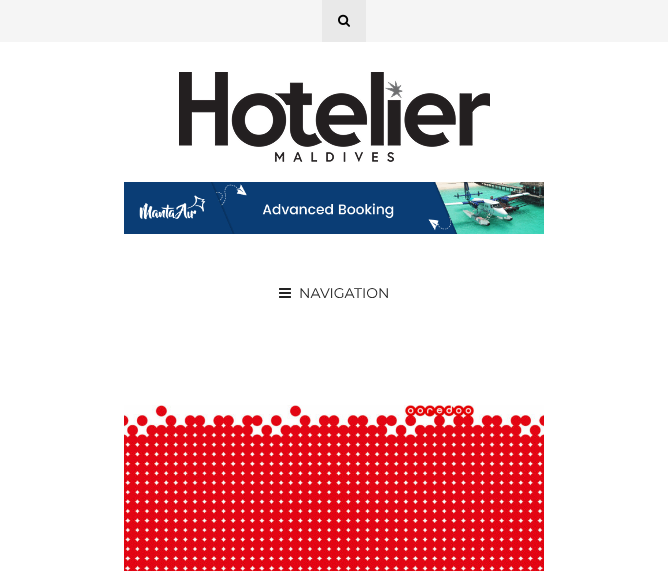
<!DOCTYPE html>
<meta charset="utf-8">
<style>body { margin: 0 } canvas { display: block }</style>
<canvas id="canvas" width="668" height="579"></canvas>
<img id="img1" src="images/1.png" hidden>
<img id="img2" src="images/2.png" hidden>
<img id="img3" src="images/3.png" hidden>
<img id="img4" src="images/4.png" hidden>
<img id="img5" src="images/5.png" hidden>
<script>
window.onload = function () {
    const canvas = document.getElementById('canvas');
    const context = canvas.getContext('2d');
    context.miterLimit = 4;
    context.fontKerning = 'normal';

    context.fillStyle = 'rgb(255, 255, 255)';
    context.fillRect(0, 0, 668, 579);
    context.fillStyle = 'rgb(245, 245, 245)';
    context.fillRect(0, 0, 668, 42);
    context.fillStyle = 'rgb(233, 233, 233)';
    context.fillRect(322, 0, 44, 42);
    context.drawImage(document.getElementById('img1'), 338, 14, 12, 13);
    context.drawImage(document.getElementById('img2'), 179, 72, 311, 90);
    context.drawImage(document.getElementById('img3'), 124, 182, 420, 52);
    context.drawImage(document.getElementById('img4'), 279, 288, 12, 10);
    context.drawImage(document.getElementById('img5'), 124, 405, 420, 166);
    context.font = '14px Montserrat';
    context.fillStyle = 'rgb(34, 34, 34)';
    context.fillText('NAVIGATION', 299, 298);
};
</script>
